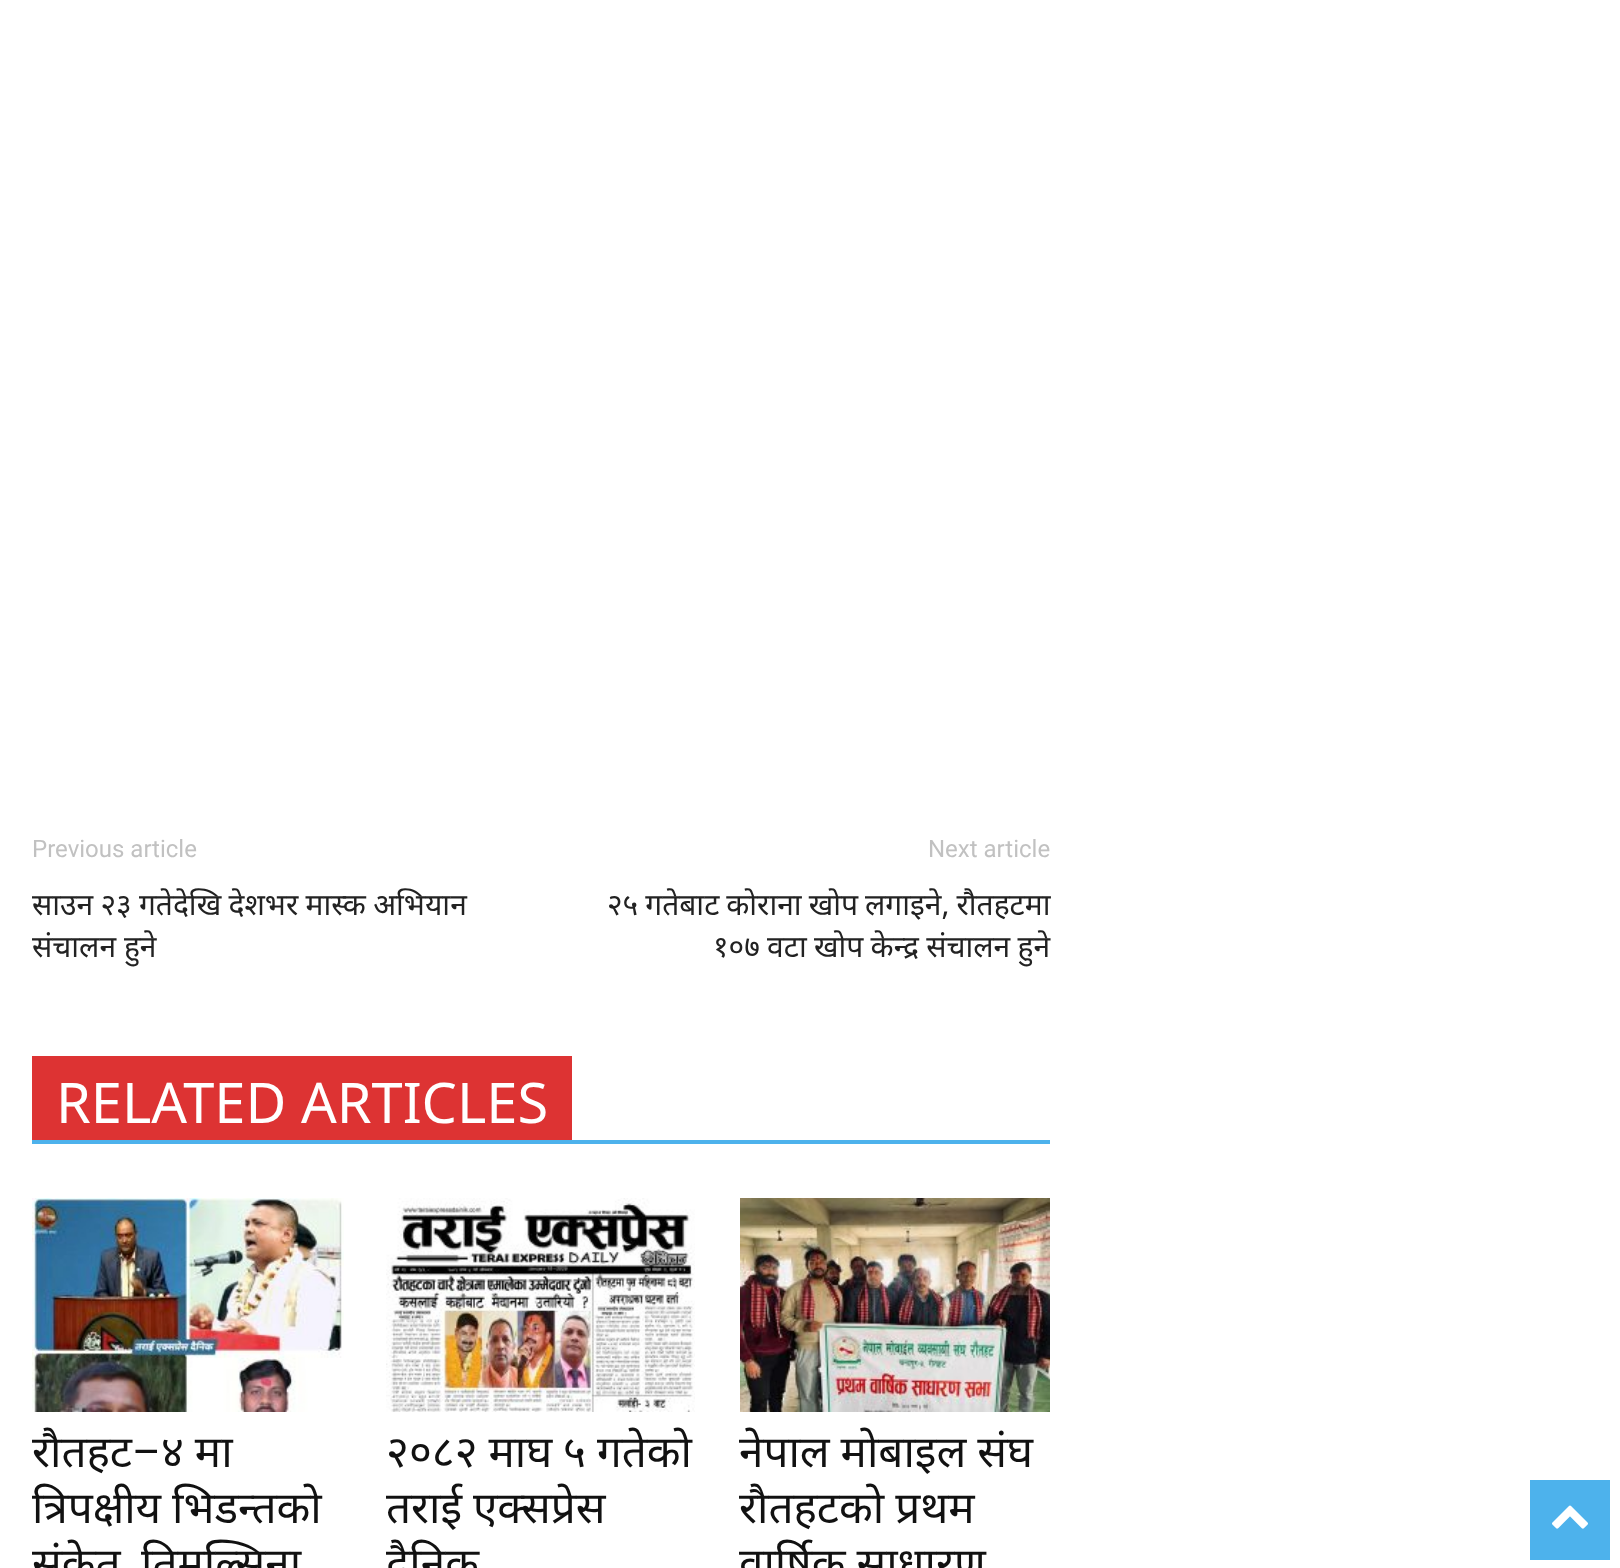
<!DOCTYPE html>
<meta charset="utf-8">
<style>body { margin: 0 } canvas { display: block }</style>
<canvas id="canvas" width="1620" height="1568"></canvas>
<img id="img1" src="images/1.png" hidden>
<img id="img2" src="images/2.png" hidden>
<img id="img3" src="images/3.png" hidden>
<img id="img4" src="images/4.png" hidden>
<script>
window.onload = function () {
    const canvas = document.getElementById('canvas');
    const context = canvas.getContext('2d');
    context.miterLimit = 4;
    context.fontKerning = 'normal';

    context.fillStyle = 'rgb(255, 255, 255)';
    context.fillRect(0, 0, 1620, 1568);
    context.fillStyle = 'rgb(77, 178, 236)';
    context.fillRect(32, 1140, 1018, 4);
    context.fillStyle = 'rgb(221, 51, 51)';
    context.fillRect(32, 1056, 540, 84);
    context.drawImage(document.getElementById('img1'), 32, 1198, 312, 214);
    context.drawImage(document.getElementById('img2'), 386, 1198, 309, 214);
    context.drawImage(document.getElementById('img3'), 740, 1198, 310, 214);
    context.fillStyle = 'rgb(77, 178, 236)';
    context.fillRect(1530, 1480, 80, 80);
    context.drawImage(document.getElementById('img4'), 1552, 1505, 36, 24);
    context.font = '24px Roboto';
    context.fillStyle = 'rgb(193, 193, 193)';
    context.fillText('Previous article', 32, 857);
    context.wordSpacing = '-0.5px';
    context.font = '30px Noto Sans';
    context.fillStyle = 'rgb(34, 34, 34)';
    context.fillText('साउन २३ गतेदेखि देशभर मास्क अभियान', 32, 915);
    context.wordSpacing = '0px';
    context.fillText('संचालन हुने', 32, 957);
    context.font = '24px Roboto';
    context.fillStyle = 'rgb(193, 193, 193)';
    context.fillText('Next article', 928, 857);
    context.wordSpacing = '-0.75px';
    context.font = '30px Noto Sans';
    context.fillStyle = 'rgb(34, 34, 34)';
    context.fillText('२५ गतेबाट कोराना खोप लगाइने, रौतहटमा', 607, 915);
    context.wordSpacing = '-0.5px';
    context.fillText('१०७ वटा खोप केन्द्र संचालन हुने', 713, 957);
    context.wordSpacing = '0px';
    context.font = '56px "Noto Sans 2"';
    context.fillStyle = 'rgb(255, 255, 255)';
    context.fillText('RELATED ARTICLES', 56, 1123);
    context.save();
    context.beginPath();
    context.rect(32, 1056, 1018, 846);
    context.clip();
    context.font = '44px Noto Sans';
    context.fillStyle = 'rgb(17, 17, 17)';
    context.fillText('रौतहट', 32, 1467);
    context.restore();
    context.font = '44px Roboto';
    context.fillStyle = 'rgb(17, 17, 17)';
    context.fillText('–', 132, 1467);
    context.wordSpacing = '-0.5px';
    context.font = '44px Noto Sans';
    context.fillText('४ मा', 161, 1467);
    context.fillText('त्रिपक्षीय भिडन्तको', 32, 1523);
    context.save();
    context.beginPath();
    context.rect(32, 1056, 1018, 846);
    context.clip();
    context.wordSpacing = '0px';
    context.fillText('संकेत', 32, 1579);
    context.restore();
    context.wordSpacing = '0px';
    context.fillText('तिमल्सिना', 141, 1579);
    context.wordSpacing = '-0.5px';
    context.fillText('२०८२ माघ ५ गतेको', 386, 1467);
    context.fillText('तराई एक्सप्रेस', 386, 1523);
    context.wordSpacing = '0px';
    context.fillText('दैनिक', 386, 1579);
    context.wordSpacing = '-0.5px';
    context.fillText('नेपाल मोबाइल संघ', 739, 1467);
    context.fillText('रौतहटको प्रथम', 739, 1523);
    context.fillText('वार्षिक साधारण', 739, 1579);
};
</script>
